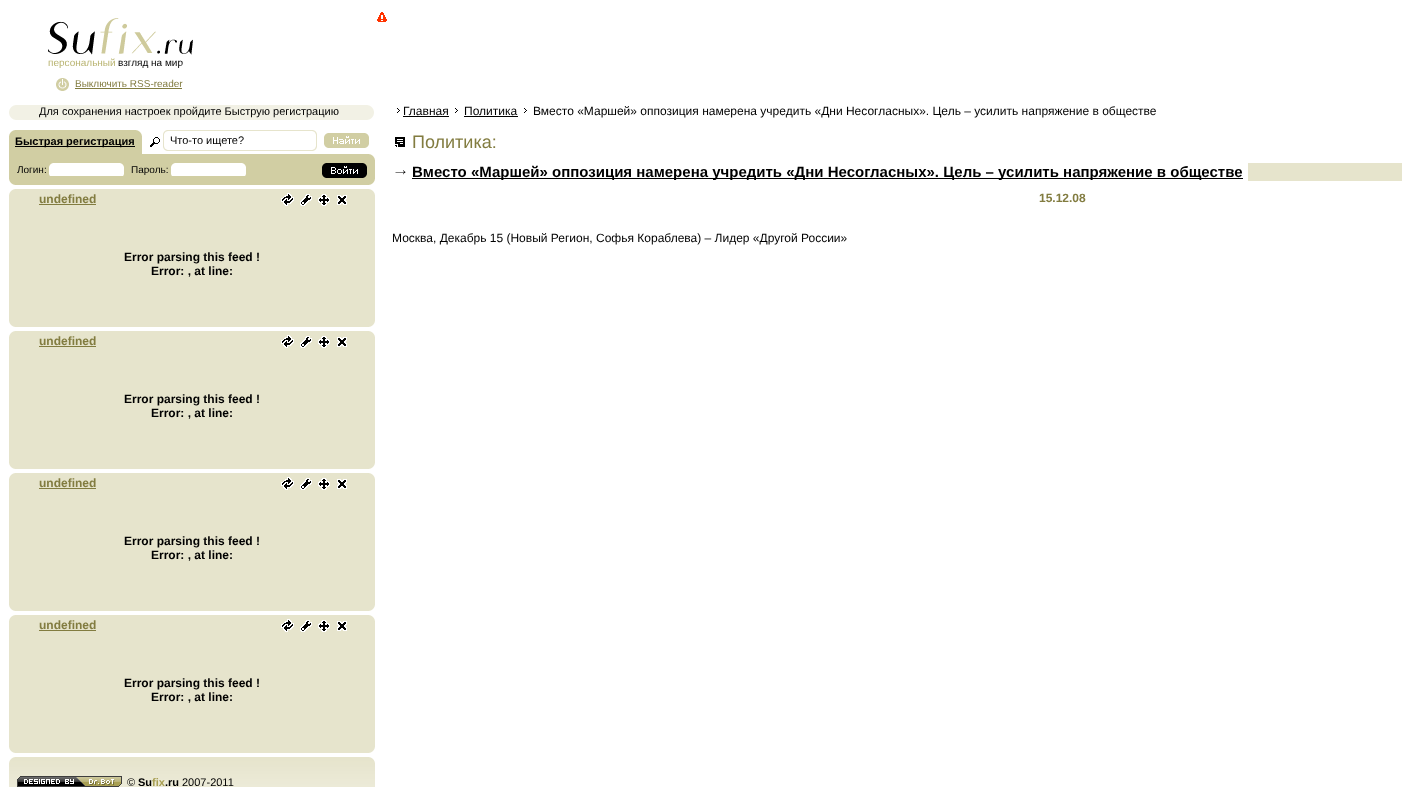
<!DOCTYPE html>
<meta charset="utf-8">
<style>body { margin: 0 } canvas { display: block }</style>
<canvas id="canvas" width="1402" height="787"></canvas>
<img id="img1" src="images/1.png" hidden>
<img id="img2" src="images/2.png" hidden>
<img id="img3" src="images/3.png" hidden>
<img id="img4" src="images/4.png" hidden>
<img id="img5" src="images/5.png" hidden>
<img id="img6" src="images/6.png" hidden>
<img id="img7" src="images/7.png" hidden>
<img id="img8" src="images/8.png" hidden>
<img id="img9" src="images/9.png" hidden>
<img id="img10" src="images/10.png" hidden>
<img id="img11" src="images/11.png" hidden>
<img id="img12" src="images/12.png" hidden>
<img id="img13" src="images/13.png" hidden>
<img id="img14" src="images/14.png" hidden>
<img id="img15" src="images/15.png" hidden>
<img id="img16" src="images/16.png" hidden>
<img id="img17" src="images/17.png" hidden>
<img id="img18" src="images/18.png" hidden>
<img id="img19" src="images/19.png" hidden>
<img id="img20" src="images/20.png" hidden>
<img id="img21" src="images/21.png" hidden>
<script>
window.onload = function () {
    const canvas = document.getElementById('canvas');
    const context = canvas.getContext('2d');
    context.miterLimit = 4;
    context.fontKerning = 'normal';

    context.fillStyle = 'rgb(255, 255, 255)';
    context.fillRect(0, 0, 1402, 787);
    context.drawImage(document.getElementById('img1'), 377, 12, 10, 10);
    context.drawImage(document.getElementById('img2'), 48, 18, 145, 37);
    context.drawImage(document.getElementById('img3'), 56, 78, 13, 13);
    context.fillStyle = 'rgb(130, 124, 64)';
    context.fillRect(75, 88, 107, 1);
    context.drawImage(document.getElementById('img4'), 9, 105, 365, 15);
    context.drawImage(document.getElementById('img5'), 397, 108, 3, 5);
    context.fillStyle = 'rgb(0, 0, 0)';
    context.fillRect(403, 116, 46, 1);
    context.drawImage(document.getElementById('img5'), 455, 108, 3, 5);
    context.fillRect(464, 116, 54, 1);
    context.drawImage(document.getElementById('img5'), 524, 108, 3, 5);
    context.drawImage(document.getElementById('img6'), 395, 137, 10, 10);
    context.fillStyle = 'rgb(230, 228, 204)';
    context.fillRect(1248, 163, 154, 18);
    context.drawImage(document.getElementById('img7'), 395, 170, 11, 5);
    context.fillStyle = 'rgb(0, 0, 0)';
    context.fillRect(412, 178, 831, 1);
    context.fillStyle = 'rgb(209, 206, 163)';
    context.fillRect(9, 160, 366, 25);
    context.drawImage(document.getElementById('img8'), 9, 130, 366, 30);
    context.fillStyle = 'rgb(0, 0, 0)';
    context.fillRect(15, 146, 120, 1);
    context.drawImage(document.getElementById('img9'), 324, 133, 45, 15);
    context.drawImage(document.getElementById('img10'), 49, 163, 75, 13);
    context.drawImage(document.getElementById('img10'), 171, 163, 75, 13);
    context.drawImage(document.getElementById('img11'), 322, 163, 45, 15);
    context.drawImage(document.getElementById('img12'), 9, 179, 366, 6);
    context.fillStyle = 'rgb(230, 228, 204)';
    context.fillRect(9, 189, 366, 138);
    context.drawImage(document.getElementById('img13'), 9, 189, 366, 6);
    context.fillStyle = 'rgb(130, 124, 64)';
    context.fillRect(39, 204, 57, 1);
    context.drawImage(document.getElementById('img14'), 281, 193, 13, 13);
    context.drawImage(document.getElementById('img15'), 300, 194, 12, 12);
    context.drawImage(document.getElementById('img16'), 318, 194, 12, 12);
    context.drawImage(document.getElementById('img17'), 337, 195, 10, 10);
    context.drawImage(document.getElementById('img18'), 9, 321, 366, 6);
    context.fillStyle = 'rgb(230, 228, 204)';
    context.fillRect(9, 331, 366, 138);
    context.drawImage(document.getElementById('img13'), 9, 331, 366, 6);
    context.fillStyle = 'rgb(130, 124, 64)';
    context.fillRect(39, 346, 57, 1);
    context.drawImage(document.getElementById('img14'), 281, 335, 13, 13);
    context.drawImage(document.getElementById('img15'), 300, 336, 12, 12);
    context.drawImage(document.getElementById('img16'), 318, 336, 12, 12);
    context.drawImage(document.getElementById('img17'), 337, 337, 10, 10);
    context.drawImage(document.getElementById('img18'), 9, 463, 366, 6);
    context.fillStyle = 'rgb(230, 228, 204)';
    context.fillRect(9, 473, 366, 138);
    context.drawImage(document.getElementById('img13'), 9, 473, 366, 6);
    context.fillStyle = 'rgb(130, 124, 64)';
    context.fillRect(39, 488, 57, 1);
    context.drawImage(document.getElementById('img14'), 281, 477, 13, 13);
    context.drawImage(document.getElementById('img15'), 300, 478, 12, 12);
    context.drawImage(document.getElementById('img16'), 318, 478, 12, 12);
    context.drawImage(document.getElementById('img17'), 337, 479, 10, 10);
    context.drawImage(document.getElementById('img18'), 9, 605, 366, 6);
    context.fillStyle = 'rgb(230, 228, 204)';
    context.fillRect(9, 615, 366, 138);
    context.drawImage(document.getElementById('img13'), 9, 615, 366, 6);
    context.fillStyle = 'rgb(130, 124, 64)';
    context.fillRect(39, 630, 57, 1);
    context.drawImage(document.getElementById('img14'), 281, 619, 13, 13);
    context.drawImage(document.getElementById('img15'), 300, 620, 12, 12);
    context.drawImage(document.getElementById('img16'), 318, 620, 12, 12);
    context.drawImage(document.getElementById('img17'), 337, 621, 10, 10);
    context.drawImage(document.getElementById('img18'), 9, 747, 366, 6);
    context.drawImage(document.getElementById('img19'), 9, 757, 366, 30);
    context.drawImage(document.getElementById('img20'), 9, 757, 366, 6);
    context.drawImage(document.getElementById('img21'), 17, 776, 105, 11);
    context.font = '10px Liberation Sans';
    context.fillStyle = 'rgb(185, 180, 113)';
    context.fillText('персональный', 48, 66);
    context.fillStyle = 'rgb(0, 0, 0)';
    context.fillText('взгляд на мир', 118, 66);
    context.fillStyle = 'rgb(130, 124, 64)';
    context.fillText('Выключить RSS-reader', 75, 87);
    context.font = '11px Liberation Sans';
    context.fillStyle = 'rgb(0, 0, 0)';
    context.fillText('Для сохранения настроек пройдите Быструю регистрацию', 39, 115);
    context.font = '12px Liberation Sans';
    context.fillText('Главная', 403, 115);
    context.fillText('Политика', 464, 115);
    context.fillText('Вместо «Маршей» оппозиция намерена учредить «Дни Несогласных». Цель – усилить напряжение в обществе', 533, 115);
    context.font = '18px Liberation Sans';
    context.fillStyle = 'rgb(130, 124, 64)';
    context.fillText('Политика:', 412, 148);
    context.font = 'bold 15px Liberation Sans';
    context.fillStyle = 'rgb(0, 0, 0)';
    context.fillText('Вместо «Маршей» оппозиция намерена учредить «Дни Несогласных». Цель – усилить напряжение в обществе', 412, 177);
    context.font = 'bold 12px Liberation Sans';
    context.fillStyle = 'rgb(130, 124, 64)';
    context.fillText('15.12.08', 1039, 202);
    context.font = '12px Liberation Sans';
    context.fillStyle = 'rgb(0, 0, 0)';
    context.fillText('Москва, Декабрь 15 (Новый Регион, Софья Кораблева) – Лидер «Другой России»', 392, 242);
    context.font = 'bold 11px Liberation Sans';
    context.fillText('Быстрая регистрация', 15, 145);
    context.font = '11px Liberation Sans';
    context.fillText('Что-то ищете?', 170, 144);
    context.font = '10px Liberation Sans';
    context.fillText('Логин:', 17, 173);
    context.fillText('Пароль:', 131, 173);
    context.font = 'bold 12px Liberation Sans';
    context.fillStyle = 'rgb(130, 124, 64)';
    context.fillText('undefined', 39, 203);
    context.fillStyle = 'rgb(0, 0, 0)';
    context.fillText('Error parsing this feed !', 124, 261);
    context.fillText('Error: , at line:', 151, 275);
    context.fillStyle = 'rgb(130, 124, 64)';
    context.fillText('undefined', 39, 345);
    context.fillStyle = 'rgb(0, 0, 0)';
    context.fillText('Error parsing this feed !', 124, 403);
    context.fillText('Error: , at line:', 151, 417);
    context.fillStyle = 'rgb(130, 124, 64)';
    context.fillText('undefined', 39, 487);
    context.fillStyle = 'rgb(0, 0, 0)';
    context.fillText('Error parsing this feed !', 124, 545);
    context.fillText('Error: , at line:', 151, 559);
    context.fillStyle = 'rgb(130, 124, 64)';
    context.fillText('undefined', 39, 629);
    context.fillStyle = 'rgb(0, 0, 0)';
    context.fillText('Error parsing this feed !', 124, 687);
    context.fillText('Error: , at line:', 151, 701);
    context.font = '11px Liberation Sans';
    context.fillText('©', 127, 786);
    context.font = 'bold 11px Liberation Sans';
    context.fillText('Su', 138, 786);
    context.fillStyle = 'rgb(168, 159, 83)';
    context.fillText('fix', 152, 786);
    context.fillStyle = 'rgb(0, 0, 0)';
    context.fillText('.ru', 165, 786);
    context.font = '11px Liberation Sans';
    context.fillText('2007-2011', 182, 786);
};
</script>
